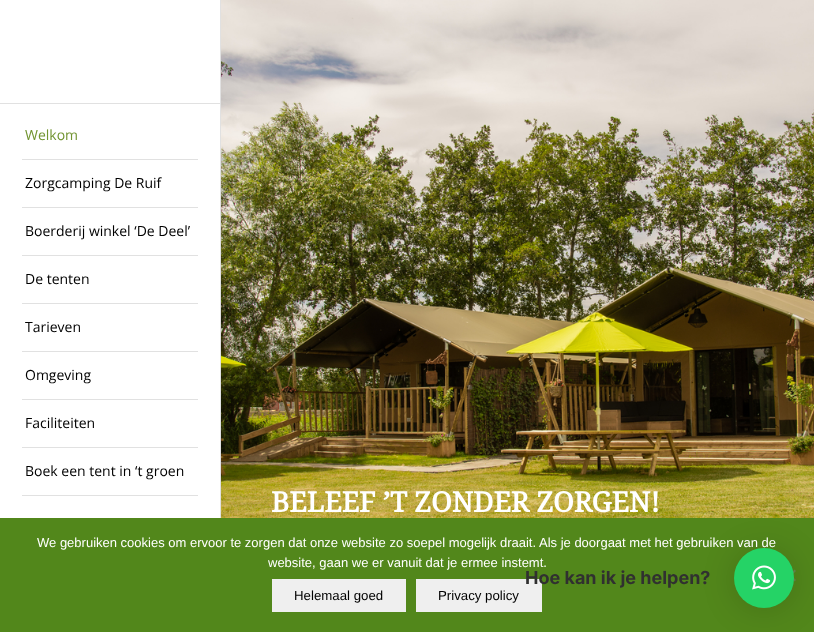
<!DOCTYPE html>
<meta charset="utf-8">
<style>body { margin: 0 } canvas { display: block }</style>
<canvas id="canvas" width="814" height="632"></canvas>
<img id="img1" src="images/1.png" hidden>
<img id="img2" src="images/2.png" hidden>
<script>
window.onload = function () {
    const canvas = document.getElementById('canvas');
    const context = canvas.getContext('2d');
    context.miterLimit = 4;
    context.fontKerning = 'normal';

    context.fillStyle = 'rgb(255, 255, 255)';
    context.fillRect(0, 0, 814, 632);
    context.fillStyle = 'rgb(225, 225, 225)';
    context.fillRect(0, 103, 220, 1);
    context.fillRect(22, 159, 176, 1);
    context.fillRect(22, 207, 176, 1);
    context.fillRect(22, 255, 176, 1);
    context.fillRect(22, 303, 176, 1);
    context.fillRect(22, 351, 176, 1);
    context.fillRect(22, 399, 176, 1);
    context.fillRect(22, 447, 176, 1);
    context.fillRect(22, 495, 176, 1);
    context.fillRect(220, 0, 1, 518);
    context.drawImage(document.getElementById('img1'), 221, 0, 593, 518);
    context.fillStyle = 'rgb(82, 135, 27)';
    context.fillRect(0, 518, 814, 114);
    context.fillStyle = 'rgb(105, 132, 78)';
    context.beginPath();
    context.moveTo(794.5, 569.5);
    context.lineTo(796, 571);
    context.lineTo(785.5, 581.5);
    context.lineTo(784, 580);
    context.closePath();
    context.fill();
    context.beginPath();
    context.moveTo(784, 571);
    context.lineTo(785.5, 569.5);
    context.lineTo(796, 580);
    context.lineTo(794.5, 581.5);
    context.closePath();
    context.fill();
    context.fillStyle = 'rgb(239, 239, 239)';
    context.fillRect(272, 579, 134, 33);
    context.fillRect(416, 579, 126, 33);
    context.fillStyle = 'rgba(0, 0, 0, 0.16)';
    context.filter = 'blur(16px)';
    context.beginPath();
    context.roundRect(734, 550, 60, 60, 30);
    context.fill();
    context.filter = 'none';
    context.font = '14px Open Sans';
    context.fillStyle = 'rgb(113, 148, 48)';
    context.fillText('Welkom', 25, 140);
    context.fillStyle = 'rgb(0, 0, 0)';
    context.fillText('Zorgcamping De Ruif', 25, 188);
    context.fillText('Boerderij winkel ‘De Deel’', 25, 236);
    context.fillText('De tenten', 25, 284);
    context.fillText('Tarieven', 25, 332);
    context.fillText('Omgeving', 25, 380);
    context.fillText('Faciliteiten', 25, 428);
    context.fillText('Boek een tent in ‘t groen', 25, 476);
    context.font = 'bold 28px Droid Serif';
    context.fillStyle = 'rgb(255, 255, 255)';
    context.fillText('BELEEF ’T ZONDER ZORGEN!', 271, 512);
    context.font = '13px Liberation Sans';
    context.fillText('We gebruiken cookies om ervoor te zorgen dat onze website zo soepel mogelijk draait. Als je doorgaat met het gebruiken van de', 37, 547);
    context.fillText('website, gaan we er vanuit dat je ermee instemt.', 268, 567);
    context.font = '13.25px Liberation Sans';
    context.fillStyle = 'rgb(0, 0, 0)';
    context.fillText('Helemaal goed', 294, 600);
    context.fillText('Privacy policy', 438, 600);
    context.fillStyle = 'rgb(37, 211, 102)';
    context.beginPath();
    context.arc(764, 578, 30, 0, 2 * Math.PI);
    context.fill();
    context.font = 'bold 18px Inter';
    context.fillStyle = 'rgb(48, 48, 48)';
    context.fillText('Hoe kan ik je helpen?', 525, 584);
    context.drawImage(document.getElementById('img2'), 752, 565, 24, 25);
};
</script>
